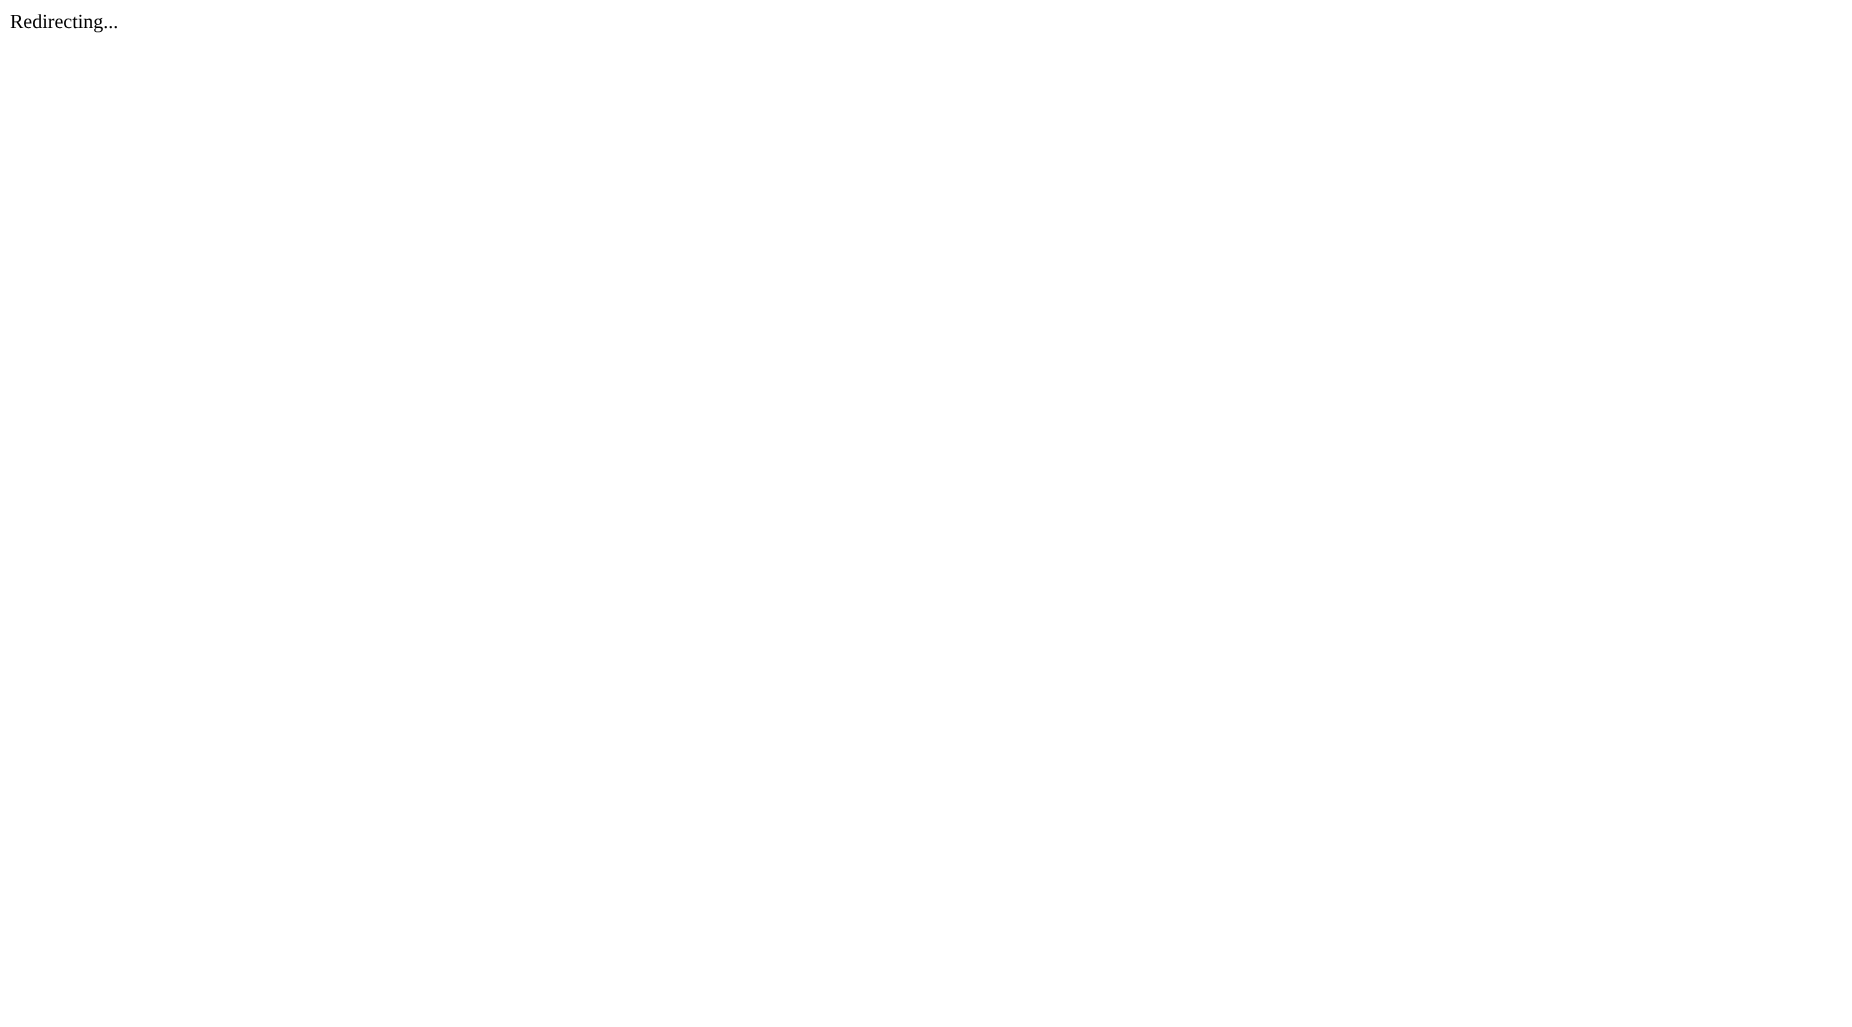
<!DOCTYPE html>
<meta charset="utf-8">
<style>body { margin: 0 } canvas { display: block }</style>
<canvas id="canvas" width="1852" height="1027"></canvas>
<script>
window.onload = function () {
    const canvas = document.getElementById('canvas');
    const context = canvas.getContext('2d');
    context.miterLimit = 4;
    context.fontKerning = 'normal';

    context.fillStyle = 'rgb(255, 255, 255)';
    context.fillRect(0, 0, 1852, 1027);
    context.font = '20px Liberation Serif';
    context.fillStyle = 'rgb(0, 0, 0)';
    context.fillText('Redirecting...', 10, 28);
};
</script>
